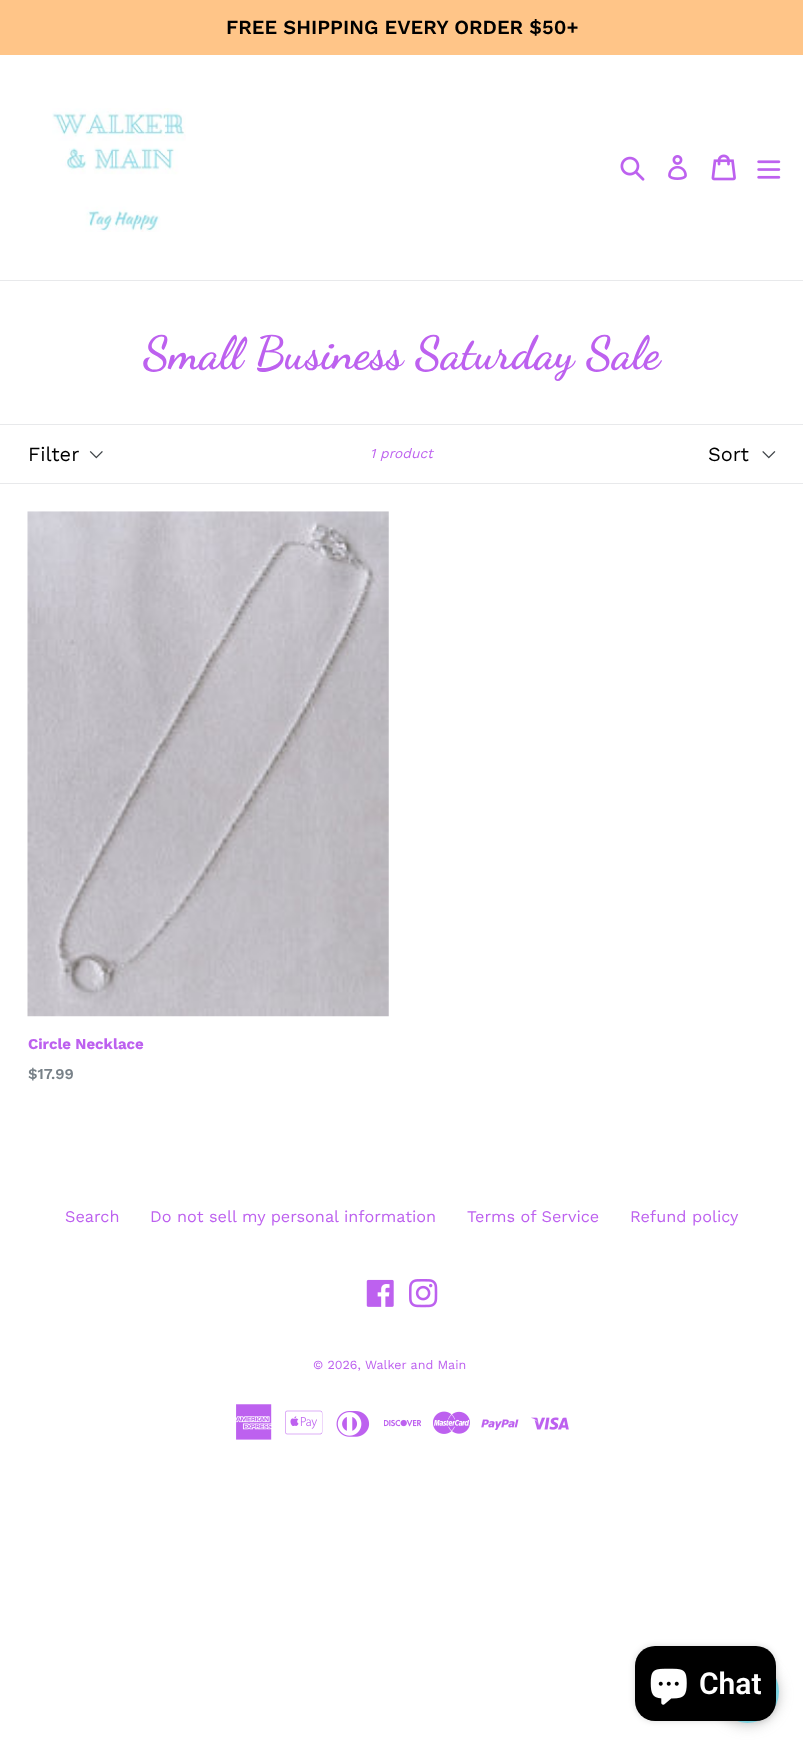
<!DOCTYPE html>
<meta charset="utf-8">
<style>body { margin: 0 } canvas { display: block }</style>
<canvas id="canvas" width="803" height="1747"></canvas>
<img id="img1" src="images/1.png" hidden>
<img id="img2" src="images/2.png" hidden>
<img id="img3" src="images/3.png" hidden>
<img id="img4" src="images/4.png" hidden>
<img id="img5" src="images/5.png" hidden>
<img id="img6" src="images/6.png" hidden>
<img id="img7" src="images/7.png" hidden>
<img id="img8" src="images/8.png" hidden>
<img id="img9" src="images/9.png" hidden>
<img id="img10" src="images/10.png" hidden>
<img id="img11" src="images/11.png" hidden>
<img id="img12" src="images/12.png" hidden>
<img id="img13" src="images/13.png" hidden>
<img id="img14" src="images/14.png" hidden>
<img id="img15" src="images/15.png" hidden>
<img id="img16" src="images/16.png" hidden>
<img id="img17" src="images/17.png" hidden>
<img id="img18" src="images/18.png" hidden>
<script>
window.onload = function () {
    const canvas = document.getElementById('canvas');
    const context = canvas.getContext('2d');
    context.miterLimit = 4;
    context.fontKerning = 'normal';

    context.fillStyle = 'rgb(255, 255, 255)';
    context.fillRect(0, 0, 803, 1747);
    context.fillStyle = 'rgb(255, 197, 136)';
    context.fillRect(0, 0, 803, 55);
    context.fillStyle = 'rgb(232, 233, 235)';
    context.fillRect(0, 280, 803, 1);
    context.drawImage(document.getElementById('img1'), 52, 108, 134, 124);
    context.drawImage(document.getElementById('img2'), 620, 156, 25, 25);
    context.drawImage(document.getElementById('img3'), 668, 155, 19, 25);
    context.drawImage(document.getElementById('img4'), 711, 154, 25, 27);
    context.drawImage(document.getElementById('img5'), 757, 160, 24, 19);
    context.fillRect(0, 424, 803, 1);
    context.fillRect(0, 483, 803, 1);
    context.drawImage(document.getElementById('img6'), 89, 451, 14, 8);
    context.drawImage(document.getElementById('img7'), 762, 451, 14, 8);
    context.drawImage(document.getElementById('img8'), 27, 511, 362, 506);
    context.drawImage(document.getElementById('img9'), 366, 1279, 28, 28);
    context.drawImage(document.getElementById('img10'), 409, 1279, 29, 29);
    context.drawImage(document.getElementById('img11'), 236, 1404, 36, 36);
    context.drawImage(document.getElementById('img12'), 285, 1410, 38, 25);
    context.drawImage(document.getElementById('img13'), 336, 1411, 34, 26);
    context.drawImage(document.getElementById('img14'), 384, 1419, 37, 8);
    context.drawImage(document.getElementById('img15'), 433, 1411, 37, 23);
    context.drawImage(document.getElementById('img16'), 481, 1419, 38, 11);
    context.drawImage(document.getElementById('img17'), 531, 1417, 38, 13);
    context.fillStyle = 'rgba(128, 128, 128, 0.4)';
    context.filter = 'blur(7px)';
    context.beginPath();
    context.roundRect(716, 1663, 63, 62, 31);
    context.fill();
    context.filter = 'none';
    context.fillStyle = 'rgb(131, 222, 237)';
    context.beginPath();
    context.arc(747.5, 1691.5, 31.5, 0, 2 * Math.PI);
    context.fill();
    context.fillStyle = 'rgba(0, 0, 0, 0.15)';
    context.filter = 'blur(3px)';
    context.beginPath();
    context.roundRect(635, 1646, 141, 75, 20);
    context.fill();
    context.filter = 'none';
    context.fillStyle = 'rgb(0, 0, 0)';
    context.beginPath();
    context.roundRect(635, 1646, 141, 75, 20);
    context.fill();
    context.drawImage(document.getElementById('img18'), 650, 1668, 37, 37);
    context.font = '600 20px Work Sans';
    context.fillText('FREE SHIPPING EVERY ORDER $50+', 226, 34);
    context.font = 'bold 46.25px Dancing Script';
    context.fillStyle = 'rgb(189, 97, 239)';
    context.fillText('Small Business Saturday Sale', 143, 368);
    context.font = '20px Work Sans';
    context.fillStyle = 'rgb(0, 0, 0)';
    context.fillText('Filter', 28, 461);
    context.font = 'italic 13.75px Work Sans';
    context.fillStyle = 'rgb(189, 97, 239)';
    context.fillText('1 product', 370, 458);
    context.font = '20px Work Sans';
    context.fillStyle = 'rgb(0, 0, 0)';
    context.fillText('Sort', 708, 461);
    context.font = 'bold 15px Work Sans';
    context.fillStyle = 'rgb(189, 97, 239)';
    context.fillText('Circle Necklace', 28, 1049);
    context.font = '600 15px Work Sans';
    context.fillStyle = 'rgb(120, 129, 136)';
    context.fillText('$17.99', 28, 1079);
    context.font = '16.25px Work Sans';
    context.fillStyle = 'rgb(189, 97, 239)';
    context.fillText('Search', 65, 1222);
    context.fillText('Do not sell my personal information', 150, 1222);
    context.fillText('Terms of Service', 467, 1222);
    context.fillText('Refund policy', 630, 1222);
    context.font = '12.5px Work Sans';
    context.fillText('© 2026,', 313, 1369);
    context.fillText('Walker and Main', 365, 1369);
    context.font = '600 30px Roboto';
    context.fillStyle = 'rgb(255, 255, 255)';
    context.fillText('Chat', 699, 1694);
};
</script>
